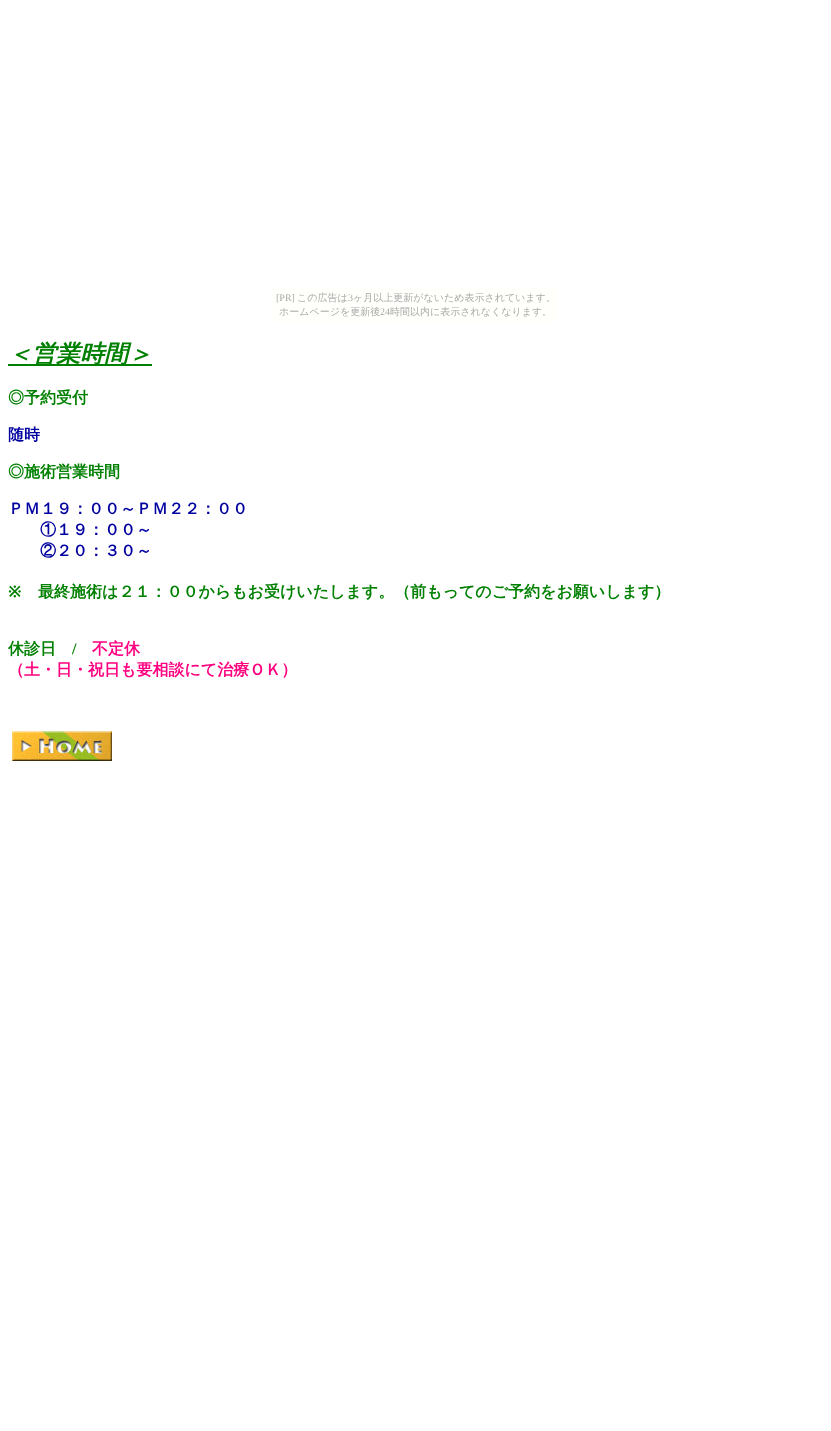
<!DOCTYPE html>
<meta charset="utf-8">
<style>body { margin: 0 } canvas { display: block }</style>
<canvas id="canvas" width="831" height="1431"></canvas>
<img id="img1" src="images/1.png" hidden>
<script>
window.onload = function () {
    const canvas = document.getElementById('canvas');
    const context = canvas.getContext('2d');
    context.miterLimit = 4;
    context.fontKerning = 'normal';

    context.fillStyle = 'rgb(255, 255, 255)';
    context.fillRect(0, 0, 831, 1431);
    context.fillStyle = 'rgb(255, 255, 252)';
    context.fillRect(273, 288, 285, 34);
    context.fillStyle = 'rgb(0, 128, 0)';
    context.fillRect(8, 364, 144, 2);
    context.drawImage(document.getElementById('img1'), 12, 731, 100, 30);
    context.font = '10px Liberation Serif';
    context.fillStyle = 'rgb(170, 170, 170)';
    context.fillText('[PR]', 276, 301);
    context.font = '500 10px WenQuanYi Zen Hei';
    context.fillText('この広告は', 297, 301);
    context.font = '10px Liberation Serif';
    context.fillText('3', 348, 301);
    context.font = '500 10px WenQuanYi Zen Hei';
    context.fillText('ヶ月以上更新がないため表示されています。', 353, 301);
    context.fillText('ホームページを更新後', 279, 315);
    context.font = '10px Liberation Serif';
    context.fillText('24', 380, 315);
    context.font = '500 10px WenQuanYi Zen Hei';
    context.fillText('時間以内に表示されなくなります。', 390, 315);
    context.font = 'italic bold 24px WenQuanYi Zen Hei';
    context.fillStyle = 'rgb(0, 128, 0)';
    context.fillText('＜営業時間＞', 8, 362);
    context.font = 'bold 16px WenQuanYi Zen Hei';
    context.fillText('◎予約受付', 8, 403);
    context.fillStyle = 'rgb(0, 0, 160)';
    context.fillText('随時', 8, 440);
    context.fillStyle = 'rgb(0, 128, 0)';
    context.fillText('◎施術営業時間', 8, 477);
    context.fillStyle = 'rgb(0, 0, 160)';
    context.fillText('ＰＭ１９：００～ＰＭ２２：００', 8, 514);
    context.fillText('①１９：００～', 40, 535);
    context.fillText('②２０：３０～', 40, 556);
    context.font = 'bold 16px Noto Sans';
    context.fillStyle = 'rgb(0, 128, 0)';
    context.fillText('※', 8, 597);
    context.font = 'bold 16px WenQuanYi Zen Hei';
    context.fillText('最終施術は２１：００からもお受けいたします。（前もってのご予約をお願いします）', 38, 597);
    context.fillText('休診日', 8, 654);
    context.font = 'bold 16px Liberation Serif';
    context.fillText('/', 72, 654);
    context.font = 'bold 16px WenQuanYi Zen Hei';
    context.fillStyle = 'rgb(255, 0, 128)';
    context.fillText('不定休', 92, 654);
    context.fillText('（土・日・祝日も要相談にて治療ＯＫ）', 8, 675);
};
</script>
